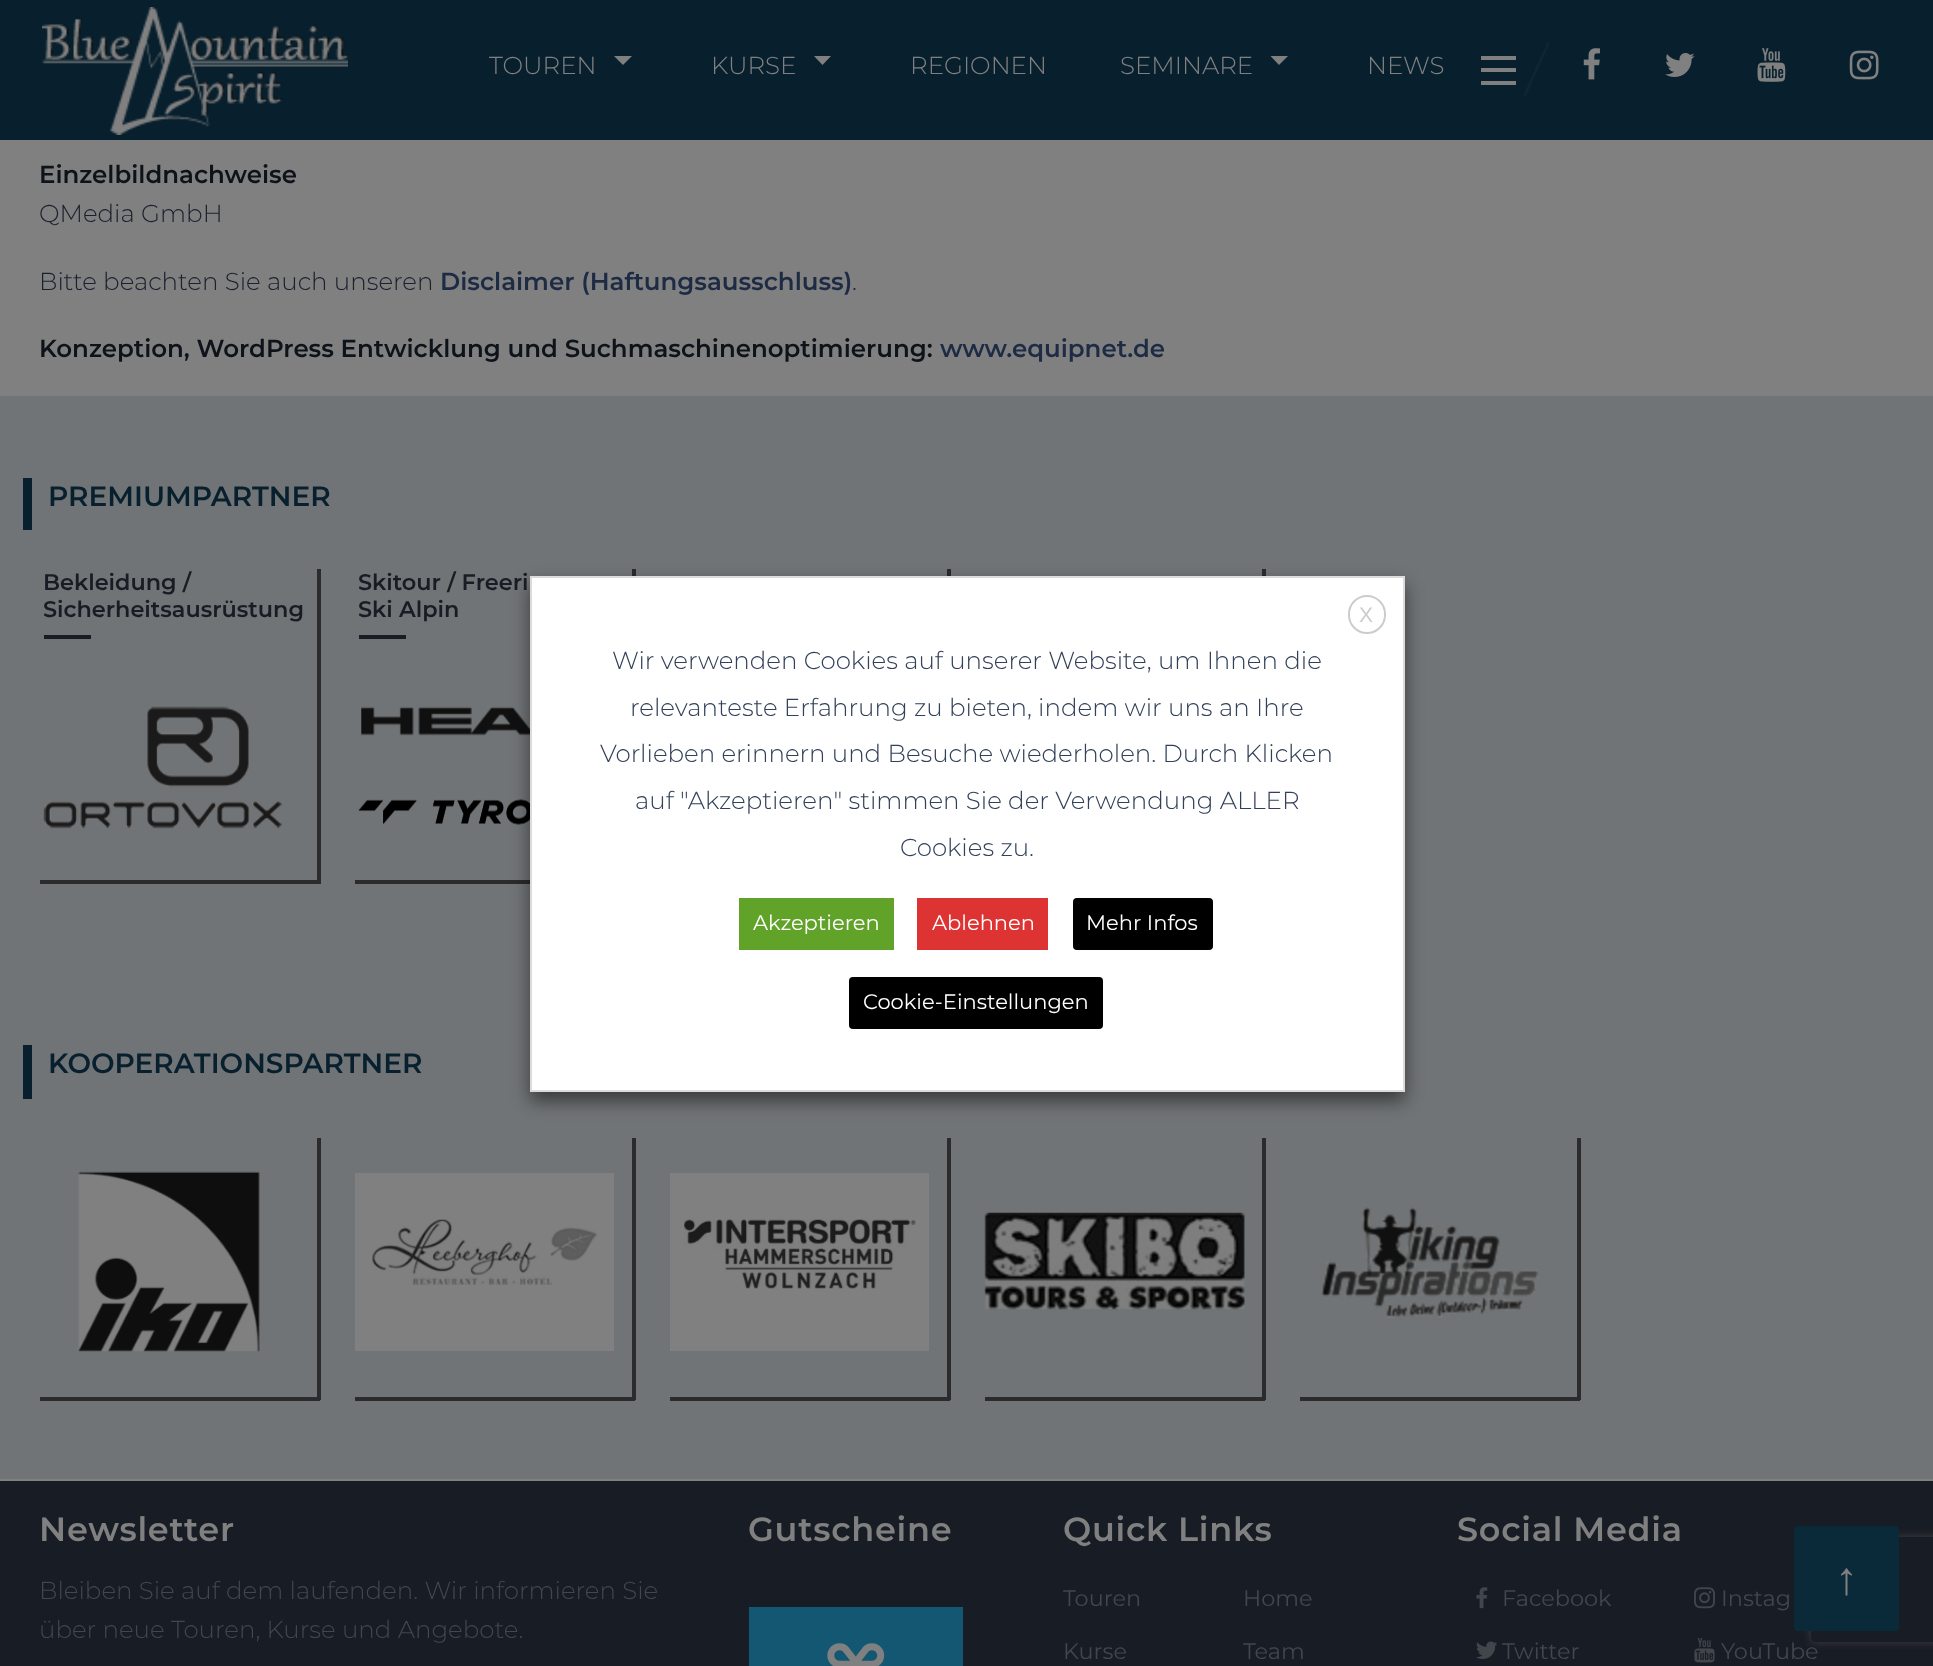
<!DOCTYPE html>
<meta charset="utf-8">
<style>body { margin: 0 } canvas { display: block }</style>
<canvas id="canvas" width="1933" height="1666"></canvas>
<img id="img1" src="images/1.png" hidden>
<img id="img2" src="images/2.png" hidden>
<img id="img3" src="images/3.png" hidden>
<img id="img4" src="images/4.png" hidden>
<img id="img5" src="images/5.png" hidden>
<img id="img6" src="images/6.png" hidden>
<img id="img7" src="images/7.png" hidden>
<img id="img8" src="images/8.png" hidden>
<img id="img9" src="images/9.png" hidden>
<img id="img10" src="images/10.png" hidden>
<img id="img11" src="images/11.png" hidden>
<img id="img12" src="images/12.png" hidden>
<img id="img13" src="images/13.png" hidden>
<img id="img14" src="images/14.png" hidden>
<img id="img15" src="images/15.png" hidden>
<img id="img16" src="images/16.png" hidden>
<img id="img17" src="images/17.png" hidden>
<img id="img18" src="images/18.png" hidden>
<img id="img19" src="images/19.png" hidden>
<script>
window.onload = function () {
    const canvas = document.getElementById('canvas');
    const context = canvas.getContext('2d');
    context.miterLimit = 4;
    context.fontKerning = 'normal';

    context.fillStyle = 'rgb(128, 128, 128)';
    context.fillRect(0, 0, 1933, 1666);
    context.fillStyle = 'rgb(8, 32, 46)';
    context.fillRect(0, 0, 1933, 140);
    context.drawImage(document.getElementById('img1'), 42, 7, 306, 128);
    context.fillStyle = 'rgb(128, 128, 128)';
    context.beginPath();
    context.moveTo(614, 56);
    context.lineTo(632, 56);
    context.lineTo(623, 65);
    context.closePath();
    context.fill();
    context.beginPath();
    context.moveTo(814, 56);
    context.lineTo(831, 56);
    context.lineTo(822.5, 65);
    context.closePath();
    context.fill();
    context.beginPath();
    context.moveTo(1270.5, 56);
    context.lineTo(1288, 56);
    context.lineTo(1279, 65);
    context.closePath();
    context.fill();
    context.fillStyle = 'rgb(127, 127, 127)';
    context.fillRect(1481, 81, 35, 4);
    context.fillRect(1481, 68, 35, 4);
    context.fillRect(1481, 56, 35, 4);
    context.drawImage(document.getElementById('img2'), 1523, 42, 26, 55);
    context.drawImage(document.getElementById('img3'), 1583, 48, 17, 32);
    context.drawImage(document.getElementById('img4'), 1665, 53, 30, 24);
    context.drawImage(document.getElementById('img5'), 1757, 48, 29, 34);
    context.drawImage(document.getElementById('img6'), 1849, 50, 30, 30);
    context.fillStyle = 'rgb(113, 116, 118)';
    context.fillRect(0, 396, 1933, 1083);
    context.fillStyle = 'rgb(8, 32, 46)';
    context.fillRect(23, 478, 9, 52);
    context.fillStyle = 'rgb(43, 43, 43)';
    context.fillRect(317, 569, 4, 315);
    context.fillRect(40, 880, 280, 4);
    context.fillStyle = 'rgb(24, 28, 37)';
    context.fillRect(44, 635, 47, 4);
    context.drawImage(document.getElementById('img7'), 43, 706, 239, 123);
    context.fillStyle = 'rgb(43, 43, 43)';
    context.fillRect(632, 569, 4, 7);
    context.fillRect(355, 880, 175, 4);
    context.fillStyle = 'rgb(24, 28, 37)';
    context.fillRect(359, 635, 47, 4);
    context.drawImage(document.getElementById('img8'), 361, 706, 169, 30);
    context.drawImage(document.getElementById('img9'), 358, 799, 172, 26);
    context.fillStyle = 'rgb(43, 43, 43)';
    context.fillRect(947, 569, 4, 7);
    context.fillRect(1262, 569, 4, 7);
    context.fillStyle = 'rgba(0, 0, 0, 0.5)';
    context.filter = 'blur(9px)';
    context.beginPath();
    context.rect(530, 585, 875, 516);
    context.fill();
    context.filter = 'none';
    context.fillStyle = 'rgb(255, 255, 255)';
    context.beginPath();
    context.rect(531, 577, 873, 514);
    context.fill();
    context.strokeStyle = 'rgb(219, 219, 219)';
    context.lineWidth = 2;
    context.stroke();
    context.beginPath();
    context.roundRect(1349, 596, 36, 37, 18);
    context.strokeStyle = 'rgb(204, 204, 204)';
    context.stroke();
    context.fillStyle = 'rgb(97, 162, 41)';
    context.fillRect(739, 898, 155, 52);
    context.fillStyle = 'rgb(221, 51, 51)';
    context.fillRect(917, 898, 131, 52);
    context.fillStyle = 'rgb(0, 0, 0)';
    context.beginPath();
    context.roundRect(1073, 898, 140, 52, 4);
    context.fill();
    context.beginPath();
    context.roundRect(849, 977, 254, 52, 4);
    context.fill();
    context.fillStyle = 'rgb(8, 32, 46)';
    context.fillRect(23, 1045, 9, 54);
    context.fillStyle = 'rgb(43, 43, 43)';
    context.fillRect(317, 1138, 4, 262);
    context.fillRect(40, 1397, 280, 4);
    context.drawImage(document.getElementById('img10'), 78, 1171, 182, 181);
    context.fillRect(632, 1138, 4, 262);
    context.fillRect(355, 1397, 280, 4);
    context.fillStyle = 'rgb(128, 128, 128)';
    context.fillRect(355, 1173, 259, 178);
    context.drawImage(document.getElementById('img11'), 372, 1219, 226, 66);
    context.fillStyle = 'rgb(43, 43, 43)';
    context.fillRect(947, 1138, 4, 262);
    context.fillRect(670, 1397, 280, 4);
    context.fillStyle = 'rgb(128, 128, 128)';
    context.fillRect(670, 1173, 259, 178);
    context.drawImage(document.getElementById('img12'), 684, 1219, 232, 70);
    context.fillStyle = 'rgb(43, 43, 43)';
    context.fillRect(1262, 1138, 4, 262);
    context.fillRect(985, 1397, 280, 4);
    context.drawImage(document.getElementById('img13'), 984, 1212, 261, 98);
    context.fillRect(1577, 1138, 4, 262);
    context.fillRect(1300, 1397, 280, 4);
    context.drawImage(document.getElementById('img14'), 1321, 1207, 218, 111);
    context.fillStyle = 'rgb(24, 28, 37)';
    context.fillRect(0, 1481, 1933, 185);
    context.fillStyle = 'rgb(19, 87, 114)';
    context.fillRect(749, 1607, 214, 59);
    context.drawImage(document.getElementById('img15'), 827, 1643, 58, 23);
    context.drawImage(document.getElementById('img16'), 1476, 1587, 12, 22);
    context.drawImage(document.getElementById('img17'), 1476, 1641, 22, 18);
    context.drawImage(document.getElementById('img18'), 1694, 1587, 21, 22);
    context.drawImage(document.getElementById('img19'), 1694, 1638, 21, 25);
    context.save();
    context.beginPath();
    context.moveTo(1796, 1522);
    context.lineTo(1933, 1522);
    context.lineTo(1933, 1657);
    context.lineTo(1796, 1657);
    context.closePath();
    context.moveTo(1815, 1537);
    context.lineTo(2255, 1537);
    context.bezierCurveTo(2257, 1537, 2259, 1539, 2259, 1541);
    context.lineTo(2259, 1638);
    context.bezierCurveTo(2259, 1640, 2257, 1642, 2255, 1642);
    context.lineTo(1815, 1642);
    context.bezierCurveTo(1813, 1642, 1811, 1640, 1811, 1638);
    context.lineTo(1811, 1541);
    context.bezierCurveTo(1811, 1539, 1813, 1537, 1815, 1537);
    context.closePath();
    context.clip('evenodd');
    context.fillStyle = 'rgb(64, 64, 64)';
    context.filter = 'blur(4.5px)';
    context.beginPath();
    context.roundRect(1811, 1537, 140, 105, 4);
    context.fill();
    context.filter = 'none';
    context.restore();
    context.fillStyle = 'rgb(10, 42, 58)';
    context.beginPath();
    context.roundRect(1794, 1526, 105, 105, 4);
    context.fill();
    context.font = '300 24.5px Montserrat';
    context.fillStyle = 'rgb(128, 128, 128)';
    context.fillText('TOUREN', 489, 74);
    context.fillText('KURSE', 711, 74);
    context.fillText('REGIONEN', 910, 74);
    context.fillText('SEMINARE', 1120, 74);
    context.fillText('NEWS', 1367, 74);
    context.font = '600 24.5px Montserrat';
    context.fillStyle = 'rgb(14, 18, 25)';
    context.fillText('Einzelbildnachweise', 39, 183);
    context.font = '300 24.5px Montserrat';
    context.fillStyle = 'rgb(26, 32, 45)';
    context.fillText('QMedia GmbH', 39, 222);
    context.fillText('Bitte beachten Sie auch unseren', 39, 290);
    context.font = '600 24.5px Montserrat';
    context.fillStyle = 'rgb(30, 43, 68)';
    context.fillText('Disclaimer (Haftungsausschluss)', 440, 290);
    context.font = '300 24.5px Montserrat';
    context.fillStyle = 'rgb(26, 32, 45)';
    context.fillText('.', 852, 290);
    context.font = '600 24.5px Montserrat';
    context.fillStyle = 'rgb(14, 18, 25)';
    context.fillText('Konzeption, WordPress Entwicklung und Suchmaschinenoptimierung:', 39, 357);
    context.fillStyle = 'rgb(30, 43, 68)';
    context.fillText('www.equipnet.de', 940, 357);
    context.font = '600 28px Montserrat';
    context.fillStyle = 'rgb(8, 32, 46)';
    context.fillText('PREMIUMPARTNER', 48, 506);
    context.font = '600 22.4px Montserrat';
    context.fillStyle = 'rgb(24, 28, 37)';
    context.fillText('Bekleidung /', 43, 590);
    context.fillText('Sicherheitsausrüstung', 43, 617);
    context.fillText('Skitour / Freeri', 358, 590);
    context.fillText('Ski Alpin', 358, 617);
    context.font = '21px Liberation Sans';
    context.fillStyle = 'rgb(204, 204, 204)';
    context.fillText('X', 1359, 622);
    context.font = '300 24.5px Montserrat';
    context.fillStyle = 'rgb(51, 64, 89)';
    context.fillText('Wir verwenden Cookies auf unserer Website, um Ihnen die', 612, 669);
    context.fillText('relevanteste Erfahrung zu bieten, indem wir uns an Ihre', 630, 716);
    context.fillText('Vorlieben erinnern und Besuche wiederholen. Durch Klicken', 600, 762);
    context.fillText('auf "Akzeptieren" stimmen Sie der Verwendung ALLER', 635, 809);
    context.fillText('Cookies zu.', 900, 856);
    context.font = '21px Montserrat';
    context.fillStyle = 'rgb(255, 255, 255)';
    context.fillText('Akzeptieren', 753, 930);
    context.fillText('Ablehnen', 932, 930);
    context.fillText('Mehr Infos', 1086, 930);
    context.fillText('Cookie-Einstellungen', 863, 1009);
    context.font = '600 28px Montserrat';
    context.fillStyle = 'rgb(8, 32, 46)';
    context.fillText('KOOPERATIONSPARTNER', 48, 1073);
    context.letterSpacing = '0.75px';
    context.font = '600 33.5px Montserrat';
    context.fillStyle = 'rgb(128, 128, 128)';
    context.fillText('Newsletter', 39, 1541);
    context.letterSpacing = '0px';
    context.font = '300 24.5px Montserrat';
    context.fillStyle = 'rgb(66, 71, 75)';
    context.fillText('Bleiben Sie auf dem laufenden. Wir informieren Sie', 39, 1599);
    context.fillText('über neue Touren, Kurse und Angebote.', 39, 1638);
    context.letterSpacing = '0.75px';
    context.font = '600 33.5px Montserrat';
    context.fillStyle = 'rgb(128, 128, 128)';
    context.fillText('Gutscheine', 748, 1541);
    context.fillText('Quick Links', 1063, 1541);
    context.letterSpacing = '0px';
    context.font = '22.4px Montserrat';
    context.fillStyle = 'rgb(66, 71, 75)';
    context.fillText('Touren', 1063, 1606);
    context.fillText('Kurse', 1063, 1659);
    context.fillText('Home', 1243, 1606);
    context.fillText('Team', 1243, 1659);
    context.letterSpacing = '0.75px';
    context.font = '600 33.5px Montserrat';
    context.fillStyle = 'rgb(128, 128, 128)';
    context.fillText('Social Media', 1457, 1541);
    context.letterSpacing = '0px';
    context.font = '22.4px Montserrat';
    context.fillStyle = 'rgb(66, 71, 75)';
    context.fillText('Facebook', 1502, 1606);
    context.fillText('Twitter', 1502, 1659);
    context.fillText('Instag', 1721, 1606);
    context.fillText('YouTube', 1721, 1659);
    context.font = '46px Liberation Sans';
    context.fillStyle = 'rgb(128, 128, 128)';
    context.fillText('↑', 1835, 1594);
};
</script>
